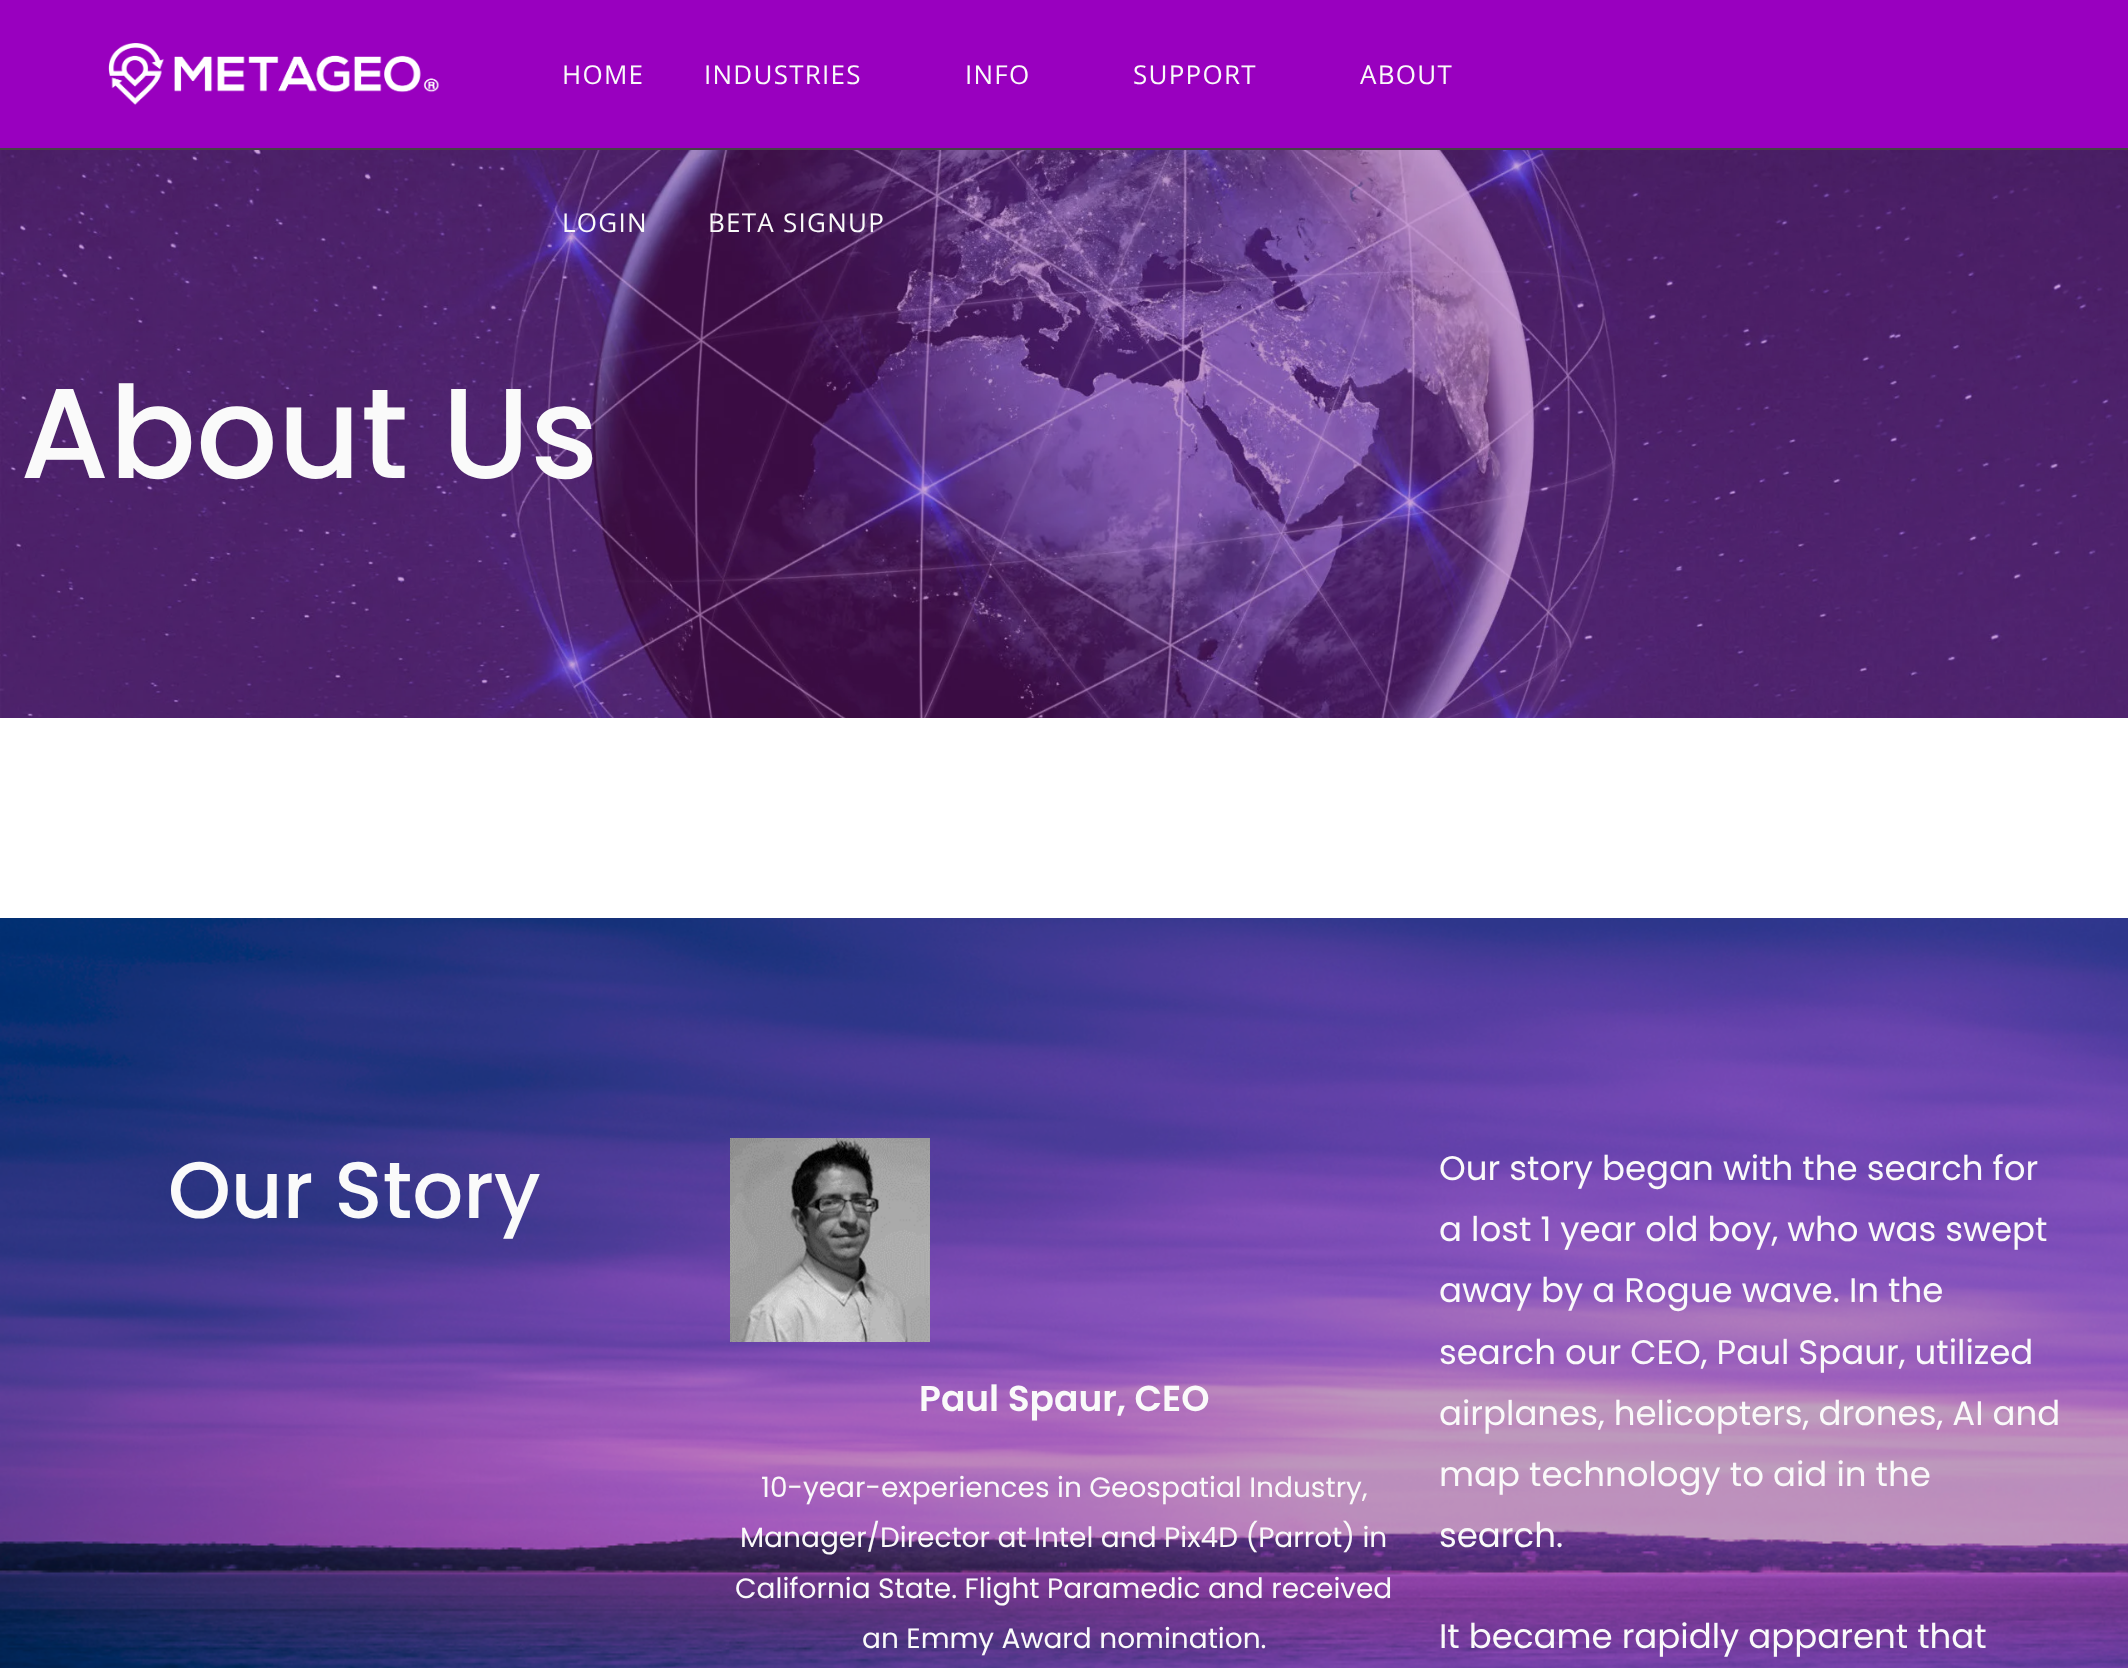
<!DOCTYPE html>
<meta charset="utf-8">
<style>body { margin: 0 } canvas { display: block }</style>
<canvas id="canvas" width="2128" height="1668"></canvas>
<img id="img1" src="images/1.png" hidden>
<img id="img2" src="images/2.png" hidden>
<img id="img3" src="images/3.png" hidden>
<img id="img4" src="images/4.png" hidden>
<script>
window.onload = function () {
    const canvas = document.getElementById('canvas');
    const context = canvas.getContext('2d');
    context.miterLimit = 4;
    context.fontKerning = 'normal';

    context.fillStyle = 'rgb(255, 255, 255)';
    context.fillRect(0, 0, 2128, 1668);
    context.fillStyle = 'rgb(153, 0, 191)';
    context.fillRect(0, 0, 2128, 148);
    context.fillStyle = 'rgb(68, 68, 68)';
    context.fillRect(0, 148, 2128, 2);
    context.drawImage(document.getElementById('img1'), 108, 43, 332, 62);
    context.drawImage(document.getElementById('img2'), 0, 150, 2128, 568);
    context.drawImage(document.getElementById('img3'), 0, 918, 2128, 750);
    context.drawImage(document.getElementById('img4'), 730, 1138, 200, 204);
    context.letterSpacing = '1.25px';
    context.font = '26px Open Sans';
    context.fillStyle = 'rgb(250, 250, 250)';
    context.fillText('HOME', 562, 84);
    context.fillText('INDUSTRIES', 704, 84);
    context.fillText('INFO', 965, 84);
    context.fillText('SUPPORT', 1133, 84);
    context.fillText('ABOUT', 1360, 84);
    context.fillText('LOGIN', 562, 232);
    context.fillText('BETA SIGNUP', 708, 232);
    context.letterSpacing = '0px';
    context.font = '500 128px Poppins';
    context.fillText('About Us', 20, 478);
    context.font = '500 80px Poppins';
    context.fillText('Our Story', 168, 1218);
    context.font = '34px Poppins';
    context.fillText('Our story began with the search for', 1439, 1180);
    context.fillText('a lost 1 year old boy, who was swept', 1439, 1241);
    context.fillText('away by a Rogue wave. In the', 1439, 1302);
    context.fillText('search our CEO, Paul Spaur, utilized', 1439, 1364);
    context.fillText('airplanes, helicopters, drones, AI and', 1439, 1425);
    context.fillText('map technology to aid in the', 1439, 1486);
    context.fillText('search.', 1439, 1547);
    context.fillText('It became rapidly apparent that', 1439, 1648);
    context.font = '600 36px Poppins';
    context.fillText('Paul Spaur, CEO', 919, 1411);
    context.font = '28px Poppins';
    context.fillText('10-year-experiences in Geospatial Industry,', 761, 1497);
    context.fillText('Manager/Director at Intel and Pix4D (Parrot) in', 740, 1547);
    context.fillText('California State. Flight Paramedic and received', 735, 1598);
    context.fillText('an Emmy Award nomination.', 862, 1648);
};
</script>
